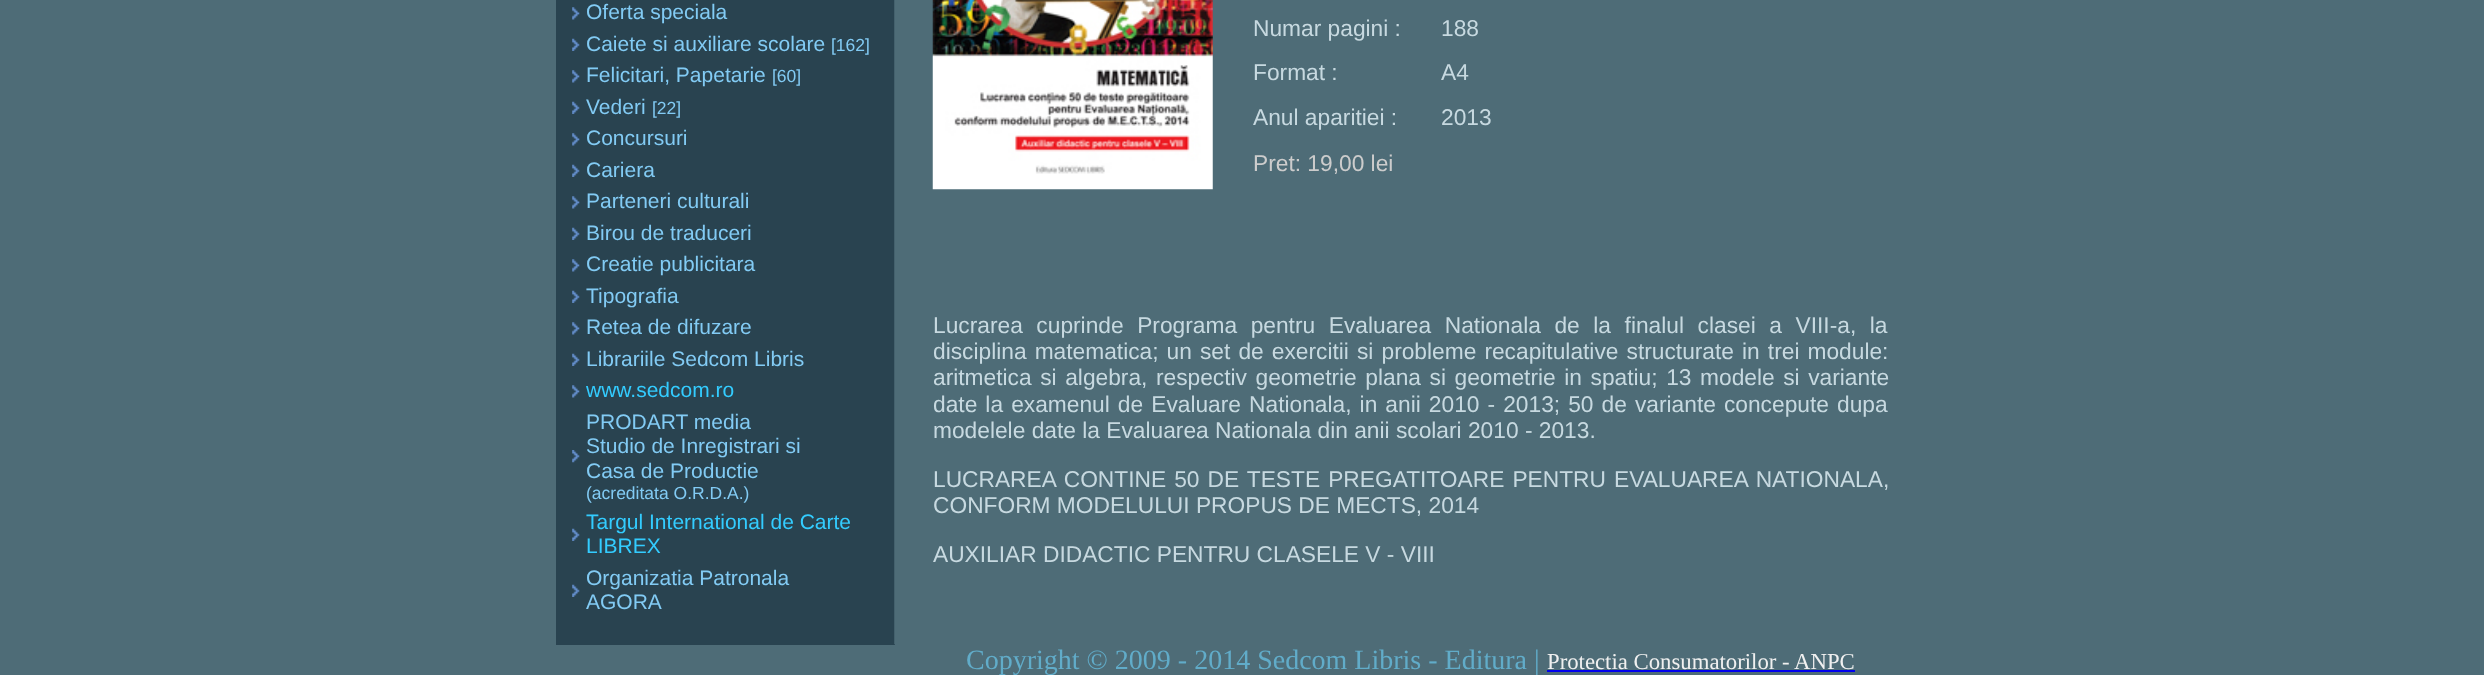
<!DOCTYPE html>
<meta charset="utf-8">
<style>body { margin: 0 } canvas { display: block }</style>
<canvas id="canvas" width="2484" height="675"></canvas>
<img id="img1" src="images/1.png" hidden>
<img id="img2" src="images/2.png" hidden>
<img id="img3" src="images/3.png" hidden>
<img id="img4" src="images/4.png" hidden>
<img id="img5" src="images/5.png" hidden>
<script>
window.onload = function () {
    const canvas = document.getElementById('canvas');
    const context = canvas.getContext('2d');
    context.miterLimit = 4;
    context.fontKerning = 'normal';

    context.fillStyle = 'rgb(78, 108, 119)';
    context.fillRect(0, 0, 2484, 675);
    context.fillStyle = 'rgb(41, 67, 80)';
    context.fillRect(556, 0, 339, 645);
    context.drawImage(document.getElementById('img1'), 572, 7, 8, 13);
    context.drawImage(document.getElementById('img2'), 572, 38, 8, 13);
    context.drawImage(document.getElementById('img1'), 572, 70, 8, 13);
    context.drawImage(document.getElementById('img2'), 572, 101, 8, 13);
    context.drawImage(document.getElementById('img1'), 572, 133, 8, 13);
    context.drawImage(document.getElementById('img2'), 572, 164, 8, 13);
    context.drawImage(document.getElementById('img1'), 572, 196, 8, 13);
    context.drawImage(document.getElementById('img2'), 572, 227, 8, 13);
    context.drawImage(document.getElementById('img1'), 572, 259, 8, 13);
    context.drawImage(document.getElementById('img2'), 572, 290, 8, 13);
    context.drawImage(document.getElementById('img1'), 572, 322, 8, 13);
    context.drawImage(document.getElementById('img2'), 572, 353, 8, 13);
    context.drawImage(document.getElementById('img1'), 572, 385, 8, 13);
    context.drawImage(document.getElementById('img3'), 572, 450, 8, 13);
    context.drawImage(document.getElementById('img2'), 572, 528, 8, 13);
    context.drawImage(document.getElementById('img2'), 572, 584, 8, 13);
    context.drawImage(document.getElementById('img4'), 894, 0, 1, 645);
    context.drawImage(document.getElementById('img5'), 932, 0, 281, 190);
    context.fillStyle = 'rgb(0, 0, 238)';
    context.fillRect(1547, 670, 308, 2);
    context.font = '21px Liberation Sans';
    context.fillStyle = 'rgb(130, 203, 244)';
    context.fillText('Oferta speciala', 586, 19);
    context.fillText('Caiete si auxiliare scolare', 586, 51);
    context.font = '17.5px Liberation Sans';
    context.fillText('[162]', 831, 51);
    context.font = '21px Liberation Sans';
    context.fillText('Felicitari, Papetarie', 586, 82);
    context.font = '17.5px Liberation Sans';
    context.fillText('[60]', 772, 82);
    context.font = '21px Liberation Sans';
    context.fillText('Vederi', 586, 114);
    context.font = '17.5px Liberation Sans';
    context.fillText('[22]', 652, 114);
    context.font = '21px Liberation Sans';
    context.fillText('Concursuri', 586, 145);
    context.fillText('Cariera', 586, 177);
    context.fillText('Parteneri culturali', 586, 208);
    context.fillText('Birou de traduceri', 586, 240);
    context.fillText('Creatie publicitara', 586, 271);
    context.fillText('Tipografia', 586, 303);
    context.fillText('Retea de difuzare', 586, 334);
    context.fillText('Librariile Sedcom Libris', 586, 366);
    context.fillStyle = 'rgb(51, 204, 255)';
    context.fillText('www.sedcom.ro', 586, 397);
    context.fillStyle = 'rgb(130, 203, 244)';
    context.fillText('PRODART media', 586, 429);
    context.fillText('Studio de Inregistrari si', 586, 453);
    context.fillText('Casa de Productie', 586, 478);
    context.font = '17.5px Liberation Sans';
    context.fillText('(acreditata O.R.D.A.)', 586, 499);
    context.font = '21px Liberation Sans';
    context.fillStyle = 'rgb(51, 204, 255)';
    context.fillText('Targul International de Carte', 586, 529);
    context.fillText('LIBREX', 586, 553);
    context.fillStyle = 'rgb(130, 203, 244)';
    context.fillText('Organizatia Patronala', 586, 585);
    context.fillText('AGORA', 586, 609);
    context.font = '22.75px Liberation Sans';
    context.fillStyle = 'rgb(199, 217, 224)';
    context.fillText('Numar pagini :', 1253, 36);
    context.fillText('188', 1441, 36);
    context.fillText('Format :', 1253, 80);
    context.fillText('A4', 1441, 80);
    context.fillText('Anul aparitiei :', 1253, 125);
    context.fillText('2013', 1441, 125);
    context.fillStyle = 'rgb(204, 204, 204)';
    context.fillText('Pret: 19,00 lei', 1253, 171);
    context.wordSpacing = '7.25px';
    context.fillStyle = 'rgb(199, 217, 224)';
    context.fillText('Lucrarea cuprinde Programa pentru Evaluarea Nationala de la finalul clasei a VIII-a, la', 933, 333);
    context.wordSpacing = '1.75px';
    context.fillText('disciplina matematica; un set de exercitii si probleme recapitulative structurate in trei module:', 933, 359);
    context.wordSpacing = '2.25px';
    context.fillText('aritmetica si algebra, respectiv geometrie plana si geometrie in spatiu; 13 modele si variante', 933, 385);
    context.wordSpacing = '1.75px';
    context.fillText('date la examenul de Evaluare Nationala, in anii 2010 - 2013; 50 de variante concepute dupa', 933, 412);
    context.wordSpacing = '0px';
    context.fillText('modelele date la Evaluarea Nationala din anii scolari 2010 - 2013.', 933, 438);
    context.wordSpacing = '1.75px';
    context.fillText('LUCRAREA CONTINE 50 DE TESTE PREGATITOARE PENTRU EVALUAREA NATIONALA,', 933, 487);
    context.wordSpacing = '0px';
    context.fillText('CONFORM MODELULUI PROPUS DE MECTS, 2014', 933, 513);
    context.fillText('AUXILIAR DIDACTIC PENTRU CLASELE V - VIII', 933, 562);
    context.font = '28px Liberation Serif';
    context.fillStyle = 'rgb(97, 172, 201)';
    context.fillText('Copyright © 2009 - 2014 Sedcom Libris - Editura |', 966, 669);
    context.font = '22.75px Liberation Serif';
    context.fillStyle = 'rgb(240, 240, 240)';
    context.fillText('Protectia Consumatorilor - ANPC', 1547, 669);
};
</script>
